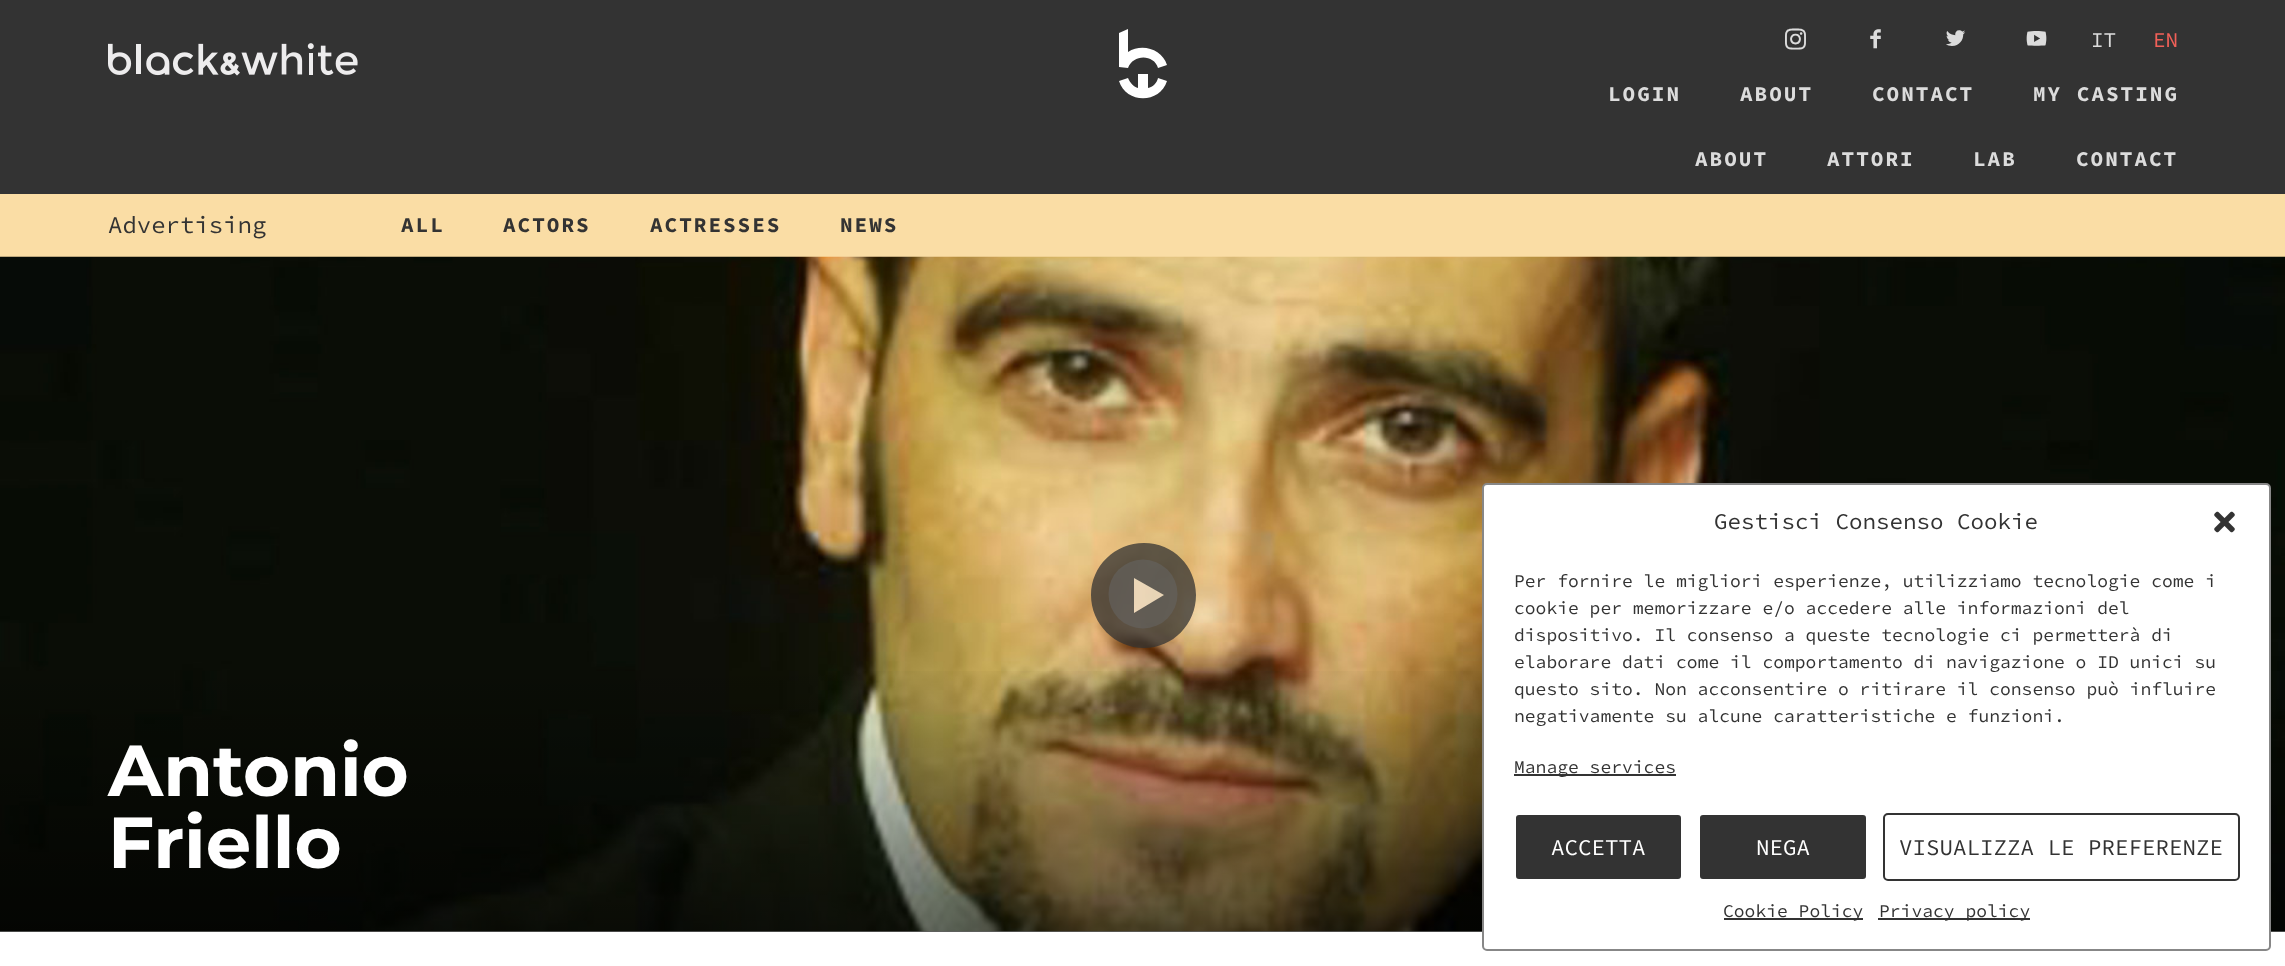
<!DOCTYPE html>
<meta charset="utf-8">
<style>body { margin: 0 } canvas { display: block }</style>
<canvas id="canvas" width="2285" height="966"></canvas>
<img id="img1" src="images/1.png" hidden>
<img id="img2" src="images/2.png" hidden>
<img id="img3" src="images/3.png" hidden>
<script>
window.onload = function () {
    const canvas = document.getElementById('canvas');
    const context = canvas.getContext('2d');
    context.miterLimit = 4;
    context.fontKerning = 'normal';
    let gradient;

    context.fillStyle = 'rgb(51, 51, 51)';
    context.fillRect(0, 0, 2285, 966);
    context.fillStyle = 'rgb(255, 255, 255)';
    context.beginPath();
    context.moveTo(1148, 88);
    context.lineTo(1148, 74);
    context.lineTo(1138, 74);
    context.lineTo(1138, 88);
    context.bezierCurveTo(1134, 87, 1130, 83, 1128, 78);
    context.lineTo(1119, 81);
    context.bezierCurveTo(1126, 104, 1160, 104, 1167, 81);
    context.lineTo(1158, 78);
    context.bezierCurveTo(1157, 83, 1153, 87, 1148, 88);
    context.closePath();
    context.fill();
    context.beginPath();
    context.moveTo(1128, 68);
    context.bezierCurveTo(1133, 54, 1154, 54, 1158, 68);
    context.lineTo(1167, 65);
    context.bezierCurveTo(1162, 49, 1142, 43, 1128, 52);
    context.lineTo(1128, 29);
    context.lineTo(1119, 33);
    context.lineTo(1119, 67);
    context.closePath();
    context.fill();
    context.drawImage(document.getElementById('img1'), 108, 43, 250, 33);
    context.fillStyle = 'rgb(250, 221, 165)';
    context.fillRect(0, 194, 2285, 63);
    context.fillStyle = 'rgb(255, 255, 255)';
    context.fillRect(0, 932, 2285, 34);
    context.fillStyle = 'rgb(238, 238, 238)';
    context.fillRect(0, 931, 2285, 1);
    context.drawImage(document.getElementById('img2'), 0, 256, 2285, 676);
    gradient = context.createLinearGradient(1143, 256, 1143, 932);
    gradient.addColorStop(0.6, 'rgba(0, 0, 0, 0)');
    gradient.addColorStop(1, 'rgba(0, 0, 0, 0.6)');
    context.fillStyle = gradient;
    context.fillRect(0, 671, 2285, 261);
    context.fillStyle = 'rgba(255, 255, 255, 0.52)';
    context.beginPath();
    context.arc(1143, 594, 34.5, 0, 2 * Math.PI);
    context.fill();
    context.fillStyle = 'rgba(51, 51, 51, 0.75)';
    context.beginPath();
    context.moveTo(1144, 543);
    context.bezierCurveTo(1115, 543, 1091, 566, 1091, 595);
    context.bezierCurveTo(1091, 624, 1115, 648, 1144, 648);
    context.bezierCurveTo(1173, 648, 1196, 624, 1196, 595);
    context.bezierCurveTo(1196, 566, 1173, 543, 1144, 543);
    context.closePath();
    context.moveTo(1149, 604);
    context.lineTo(1134, 613);
    context.lineTo(1134, 578);
    context.lineTo(1164, 595);
    context.closePath();
    context.fill();
    context.fillStyle = 'rgb(255, 255, 255)';
    context.beginPath();
    context.roundRect(1483, 484, 787, 466, 4);
    context.fill();
    context.strokeStyle = 'rgb(135, 135, 135)';
    context.lineWidth = 2;
    context.stroke();
    context.drawImage(document.getElementById('img3'), 2214, 511, 21, 22);
    context.fillStyle = 'rgb(51, 51, 51)';
    context.fillRect(1514, 774, 162, 2);
    context.beginPath();
    context.roundRect(1515, 814, 167, 66, 4);
    context.fill();
    context.strokeStyle = 'rgb(255, 255, 255)';
    context.stroke();
    context.beginPath();
    context.roundRect(1699, 814, 168, 66, 4);
    context.fill();
    context.stroke();
    context.beginPath();
    context.roundRect(1884, 814, 355, 66, 4);
    context.strokeStyle = 'rgb(51, 51, 51)';
    context.stroke();
    context.fillRect(1724, 918, 139, 2);
    context.fillRect(1878, 918, 152, 2);
    context.font = '21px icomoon';
    context.fillStyle = 'rgb(220, 220, 220)';
    context.fillText('i', 1785, 48);
    context.fillText('f', 1865, 48);
    context.fillText('t', 1945, 48);
    context.fillText('y', 2026, 48);
    context.font = '200 21px "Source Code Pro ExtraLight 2"';
    context.fillText('IT', 2091, 47);
    context.fillStyle = 'rgb(241, 96, 88)';
    context.fillText('EN', 2153, 47);
    context.letterSpacing = '2px';
    context.font = '200 21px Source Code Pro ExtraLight';
    context.fillStyle = 'rgb(220, 220, 220)';
    context.fillText('LOGIN', 1608, 101);
    context.fillText('ABOUT', 1740, 101);
    context.fillText('CONTACT', 1872, 101);
    context.fillText('MY CASTING', 2033, 101);
    context.fillText('ABOUT', 1695, 166);
    context.fillText('ATTORI', 1827, 166);
    context.fillText('LAB', 1973, 166);
    context.fillText('CONTACT', 2076, 166);
    context.letterSpacing = '0px';
    context.font = '200 24px "Source Code Pro ExtraLight 2"';
    context.fillStyle = 'rgb(51, 51, 51)';
    context.fillText('Advertising', 108, 233);
    context.letterSpacing = '2px';
    context.font = '200 21px Source Code Pro ExtraLight';
    context.fillText('ALL', 401, 232);
    context.fillText('ACTORS', 503, 232);
    context.fillText('ACTRESSES', 650, 232);
    context.fillText('NEWS', 840, 232);
    context.letterSpacing = '0px';
    context.font = '100 72px Montserrat';
    context.fillStyle = 'rgb(255, 255, 255)';
    context.fillText('Antonio', 108, 796);
    context.fillText('Friello', 108, 868);
    context.font = '200 22.5px "Source Code Pro ExtraLight 2"';
    context.fillStyle = 'rgb(51, 51, 51)';
    context.fillText('Gestisci Consenso Cookie', 1714, 529);
    context.font = '200 18px "Source Code Pro ExtraLight 2"';
    context.fillText('Per fornire le migliori esperienze, utilizziamo tecnologie come i', 1514, 587);
    context.fillText('cookie per memorizzare e/o accedere alle informazioni del', 1514, 614);
    context.fillText('dispositivo. Il consenso a queste tecnologie ci permetterà di', 1514, 641);
    context.fillText('elaborare dati come il comportamento di navigazione o ID unici su', 1514, 668);
    context.fillText('questo sito. Non acconsentire o ritirare il consenso può influire', 1514, 695);
    context.fillText('negativamente su alcune caratteristiche e funzioni.', 1514, 722);
    context.fillText('Manage services', 1514, 773);
    context.font = '200 22.5px "Source Code Pro ExtraLight 2"';
    context.fillStyle = 'rgb(255, 255, 255)';
    context.fillText('ACCETTA', 1551, 855);
    context.fillText('NEGA', 1756, 855);
    context.fillStyle = 'rgb(51, 51, 51)';
    context.fillText('VISUALIZZA LE PREFERENZE', 1899, 855);
    context.font = '200 18px "Source Code Pro ExtraLight 2"';
    context.fillText('Cookie Policy', 1723, 917);
    context.fillText('Privacy policy', 1879, 917);
};
</script>
